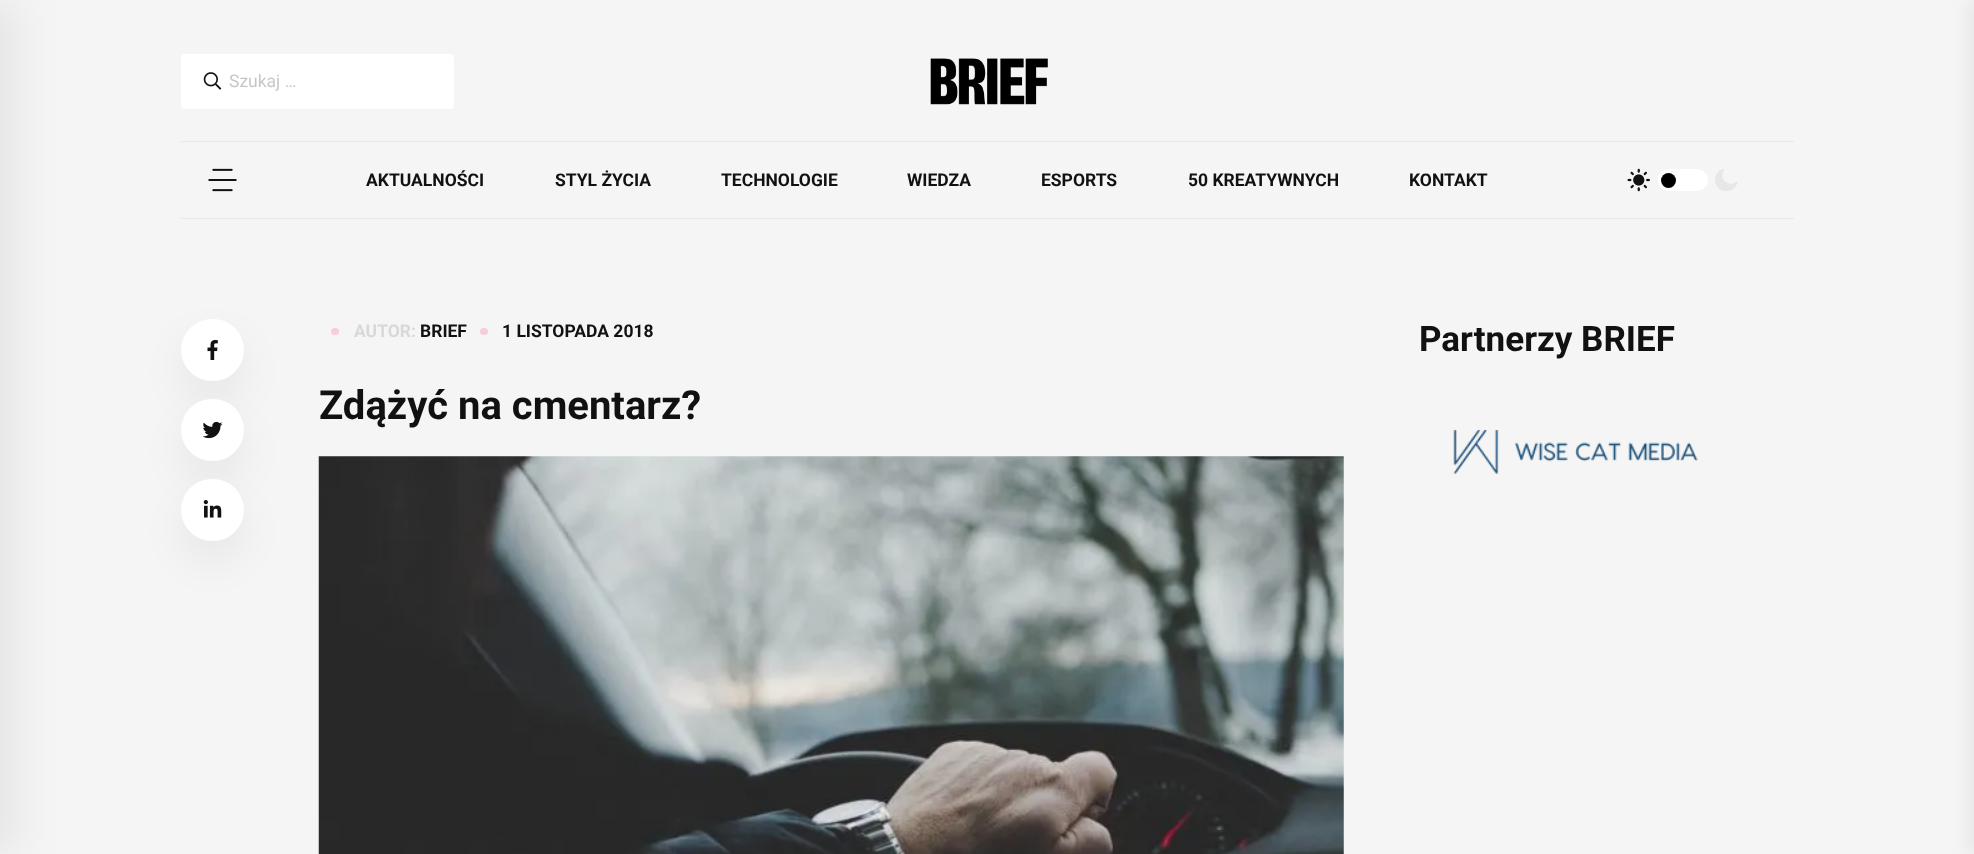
<!DOCTYPE html>
<meta charset="utf-8">
<style>body { margin: 0 } canvas { display: block }</style>
<canvas id="canvas" width="1974" height="854"></canvas>
<img id="img1" src="images/1.png" hidden>
<img id="img2" src="images/2.png" hidden>
<img id="img3" src="images/3.png" hidden>
<img id="img4" src="images/4.png" hidden>
<img id="img5" src="images/5.png" hidden>
<img id="img6" src="images/6.png" hidden>
<img id="img7" src="images/7.png" hidden>
<img id="img8" src="images/8.png" hidden>
<img id="img9" src="images/9.png" hidden>
<img id="img10" src="images/10.png" hidden>
<script>
window.onload = function () {
    const canvas = document.getElementById('canvas');
    const context = canvas.getContext('2d');
    context.miterLimit = 4;
    context.fontKerning = 'normal';

    context.fillStyle = 'rgb(245, 245, 245)';
    context.fillRect(0, 0, 1974, 854);
    context.fillStyle = 'rgba(0, 0, 0, 0.06)';
    context.filter = 'blur(20px)';
    context.beginPath();
    context.rect(-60, 0, 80, 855);
    context.fill();
    context.filter = 'none';
    context.fillStyle = 'rgb(255, 255, 255)';
    context.beginPath();
    context.roundRect(181, 54, 273, 55, 4);
    context.fill();
    context.drawImage(document.getElementById('img1'), 203, 72, 19, 18);
    context.drawImage(document.getElementById('img2'), 930, 58, 118, 47);
    context.fillStyle = 'rgb(232, 232, 232)';
    context.fillRect(181, 141, 1613, 1);
    context.fillRect(181, 218, 1613, 1);
    context.drawImage(document.getElementById('img3'), 208, 168, 29, 24);
    context.drawImage(document.getElementById('img4'), 1627, 168, 23, 24);
    context.fillStyle = 'rgb(255, 255, 255)';
    context.beginPath();
    context.roundRect(1658, 169, 50, 22, 11);
    context.fill();
    context.fillStyle = 'rgb(0, 0, 0)';
    context.beginPath();
    context.arc(1668.5, 180.5, 7.5, 0, 2 * Math.PI);
    context.fill();
    context.drawImage(document.getElementById('img5'), 1715, 169, 23, 22);
    context.fillStyle = 'rgba(0, 0, 0, 0.06)';
    context.filter = 'blur(9px)';
    context.beginPath();
    context.rect(1968, 0, 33, 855);
    context.fill();
    context.filter = 'none';
    context.filter = 'blur(20px)';
    context.beginPath();
    context.roundRect(181, 339, 63, 62, 31);
    context.fill();
    context.filter = 'none';
    context.fillStyle = 'rgb(255, 255, 255)';
    context.beginPath();
    context.roundRect(181, 319, 63, 62, 31);
    context.fill();
    context.fillStyle = 'rgba(0, 0, 0, 0.06)';
    context.filter = 'blur(20px)';
    context.beginPath();
    context.roundRect(181, 419, 63, 62, 31);
    context.fill();
    context.filter = 'none';
    context.drawImage(document.getElementById('img6'), 207, 340, 11, 20);
    context.fillStyle = 'rgb(255, 255, 255)';
    context.beginPath();
    context.roundRect(181, 399, 63, 62, 31);
    context.fill();
    context.fillStyle = 'rgba(0, 0, 0, 0.06)';
    context.filter = 'blur(20px)';
    context.beginPath();
    context.roundRect(181, 499, 63, 62, 31);
    context.fill();
    context.filter = 'none';
    context.drawImage(document.getElementById('img7'), 202, 421, 21, 18);
    context.fillStyle = 'rgb(255, 255, 255)';
    context.beginPath();
    context.roundRect(181, 479, 63, 62, 31);
    context.fill();
    context.drawImage(document.getElementById('img8'), 203, 500, 19, 18);
    context.fillStyle = 'rgb(247, 206, 216)';
    context.beginPath();
    context.roundRect(331, 328, 8, 7, 3.5);
    context.fill();
    context.beginPath();
    context.roundRect(480, 328, 8, 7, 3.5);
    context.fill();
    context.drawImage(document.getElementById('img9'), 318, 456, 1026, 398);
    context.drawImage(document.getElementById('img10'), 1453, 429, 245, 45);
    context.font = '17.5px Roboto';
    context.fillStyle = 'rgb(199, 199, 199)';
    context.fillText('Szukaj …', 229, 87);
    context.font = 'bold 17.5px Roboto';
    context.fillStyle = 'rgb(17, 17, 17)';
    context.fillText('AKTUALNOŚCI', 366, 186);
    context.fillText('STYL ŻYCIA', 555, 186);
    context.fillText('TECHNOLOGIE', 721, 186);
    context.fillText('WIEDZA', 907, 186);
    context.fillText('ESPORTS', 1041, 186);
    context.fillText('50 KREATYWNYCH', 1188, 186);
    context.fillText('KONTAKT', 1409, 186);
    context.fillStyle = 'rgb(216, 216, 216)';
    context.fillText('AUTOR:', 354, 337);
    context.fillStyle = 'rgb(17, 17, 17)';
    context.fillText('BRIEF', 420, 337);
    context.fillText('1 LISTOPADA 2018', 502, 337);
    context.font = 'bold 40px Roboto';
    context.fillText('Zdążyć na cmentarz?', 319, 419);
    context.font = 'bold 35px Roboto';
    context.fillText('Partnerzy BRIEF', 1419, 351);
};
</script>
